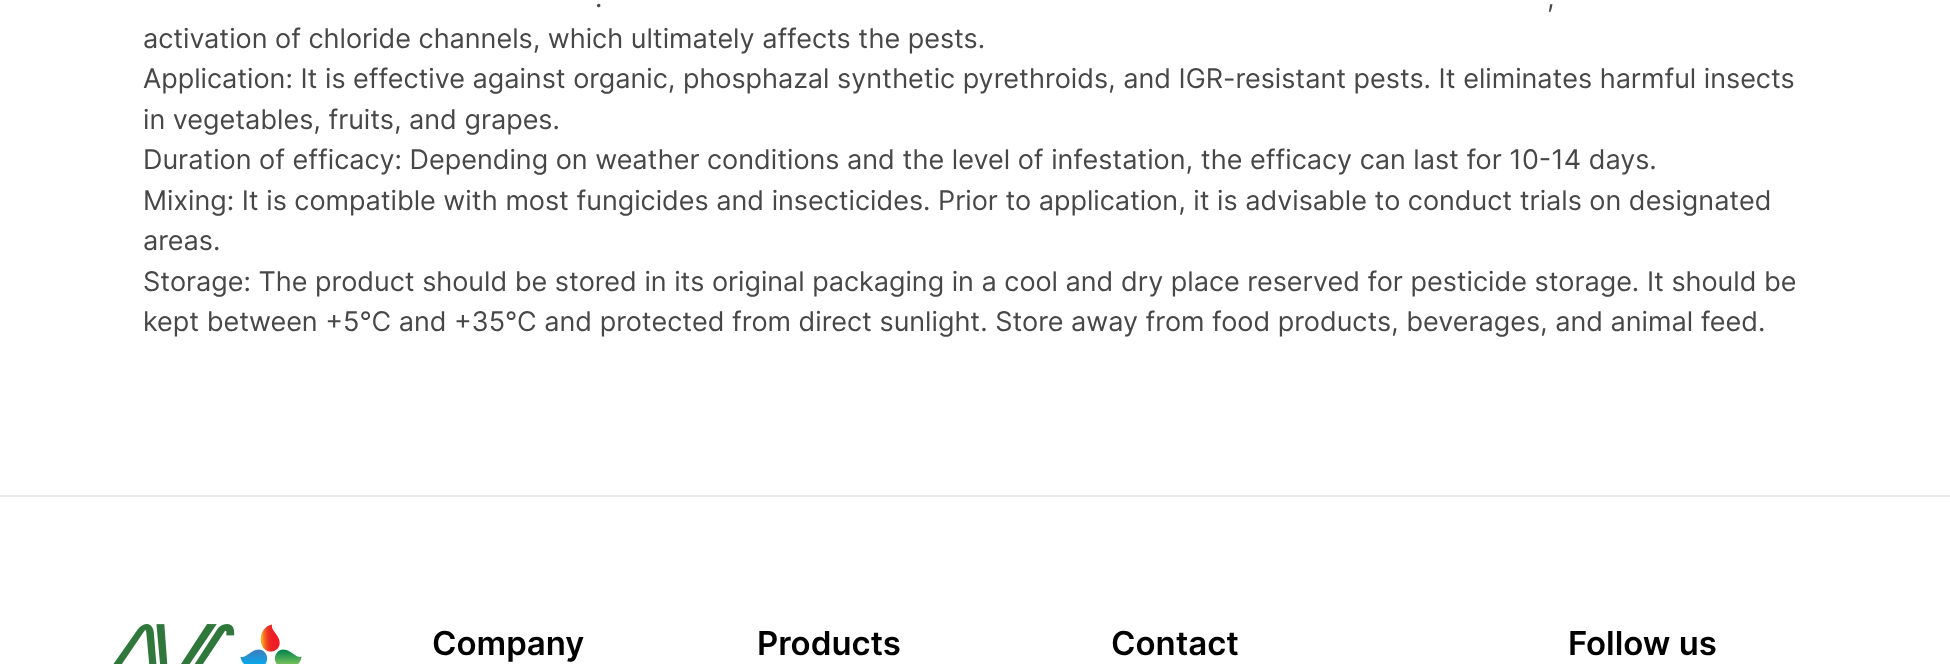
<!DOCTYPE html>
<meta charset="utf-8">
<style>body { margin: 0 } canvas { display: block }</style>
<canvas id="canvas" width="1950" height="664"></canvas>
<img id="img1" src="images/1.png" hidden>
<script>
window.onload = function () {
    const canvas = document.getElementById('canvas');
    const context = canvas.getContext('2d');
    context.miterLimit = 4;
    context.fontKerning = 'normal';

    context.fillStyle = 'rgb(255, 255, 255)';
    context.fillRect(0, 0, 1950, 664);
    context.fillStyle = 'rgb(234, 234, 234)';
    context.fillRect(0, 495, 1950, 2);
    context.drawImage(document.getElementById('img1'), 113, 624, 189, 40);
    context.font = '27px Inter';
    context.fillStyle = 'rgb(71, 71, 71)';
    context.fillText('.', 595, 7);
    context.fillText(',', 1547, 7);
    context.fillText('activation of chloride channels, which ultimately affects the pests.', 143, 48);
    context.fillText('Application: It is effective against organic, phosphazal synthetic pyrethroids, and IGR-resistant pests. It eliminates harmful insects', 143, 88);
    context.fillText('in vegetables, fruits, and grapes.', 143, 129);
    context.fillText('Duration of efficacy: Depending on weather conditions and the level of infestation, the efficacy can last for 10-14 days.', 143, 169);
    context.fillText('Mixing: It is compatible with most fungicides and insecticides. Prior to application, it is advisable to conduct trials on designated', 143, 210);
    context.fillText('areas.', 143, 250);
    context.fillText('Storage: The product should be stored in its original packaging in a cool and dry place reserved for pesticide storage. It should be', 143, 291);
    context.fillText('kept between +5°C and +35°C and protected from direct sunlight. Store away from food products, beverages, and animal feed.', 143, 331);
    context.font = '600 33px Inter';
    context.fillStyle = 'rgb(0, 0, 0)';
    context.fillText('Company', 432, 655);
    context.fillText('Products', 757, 655);
    context.fillText('Contact', 1111, 655);
    context.fillText('Follow us', 1568, 655);
};
</script>
